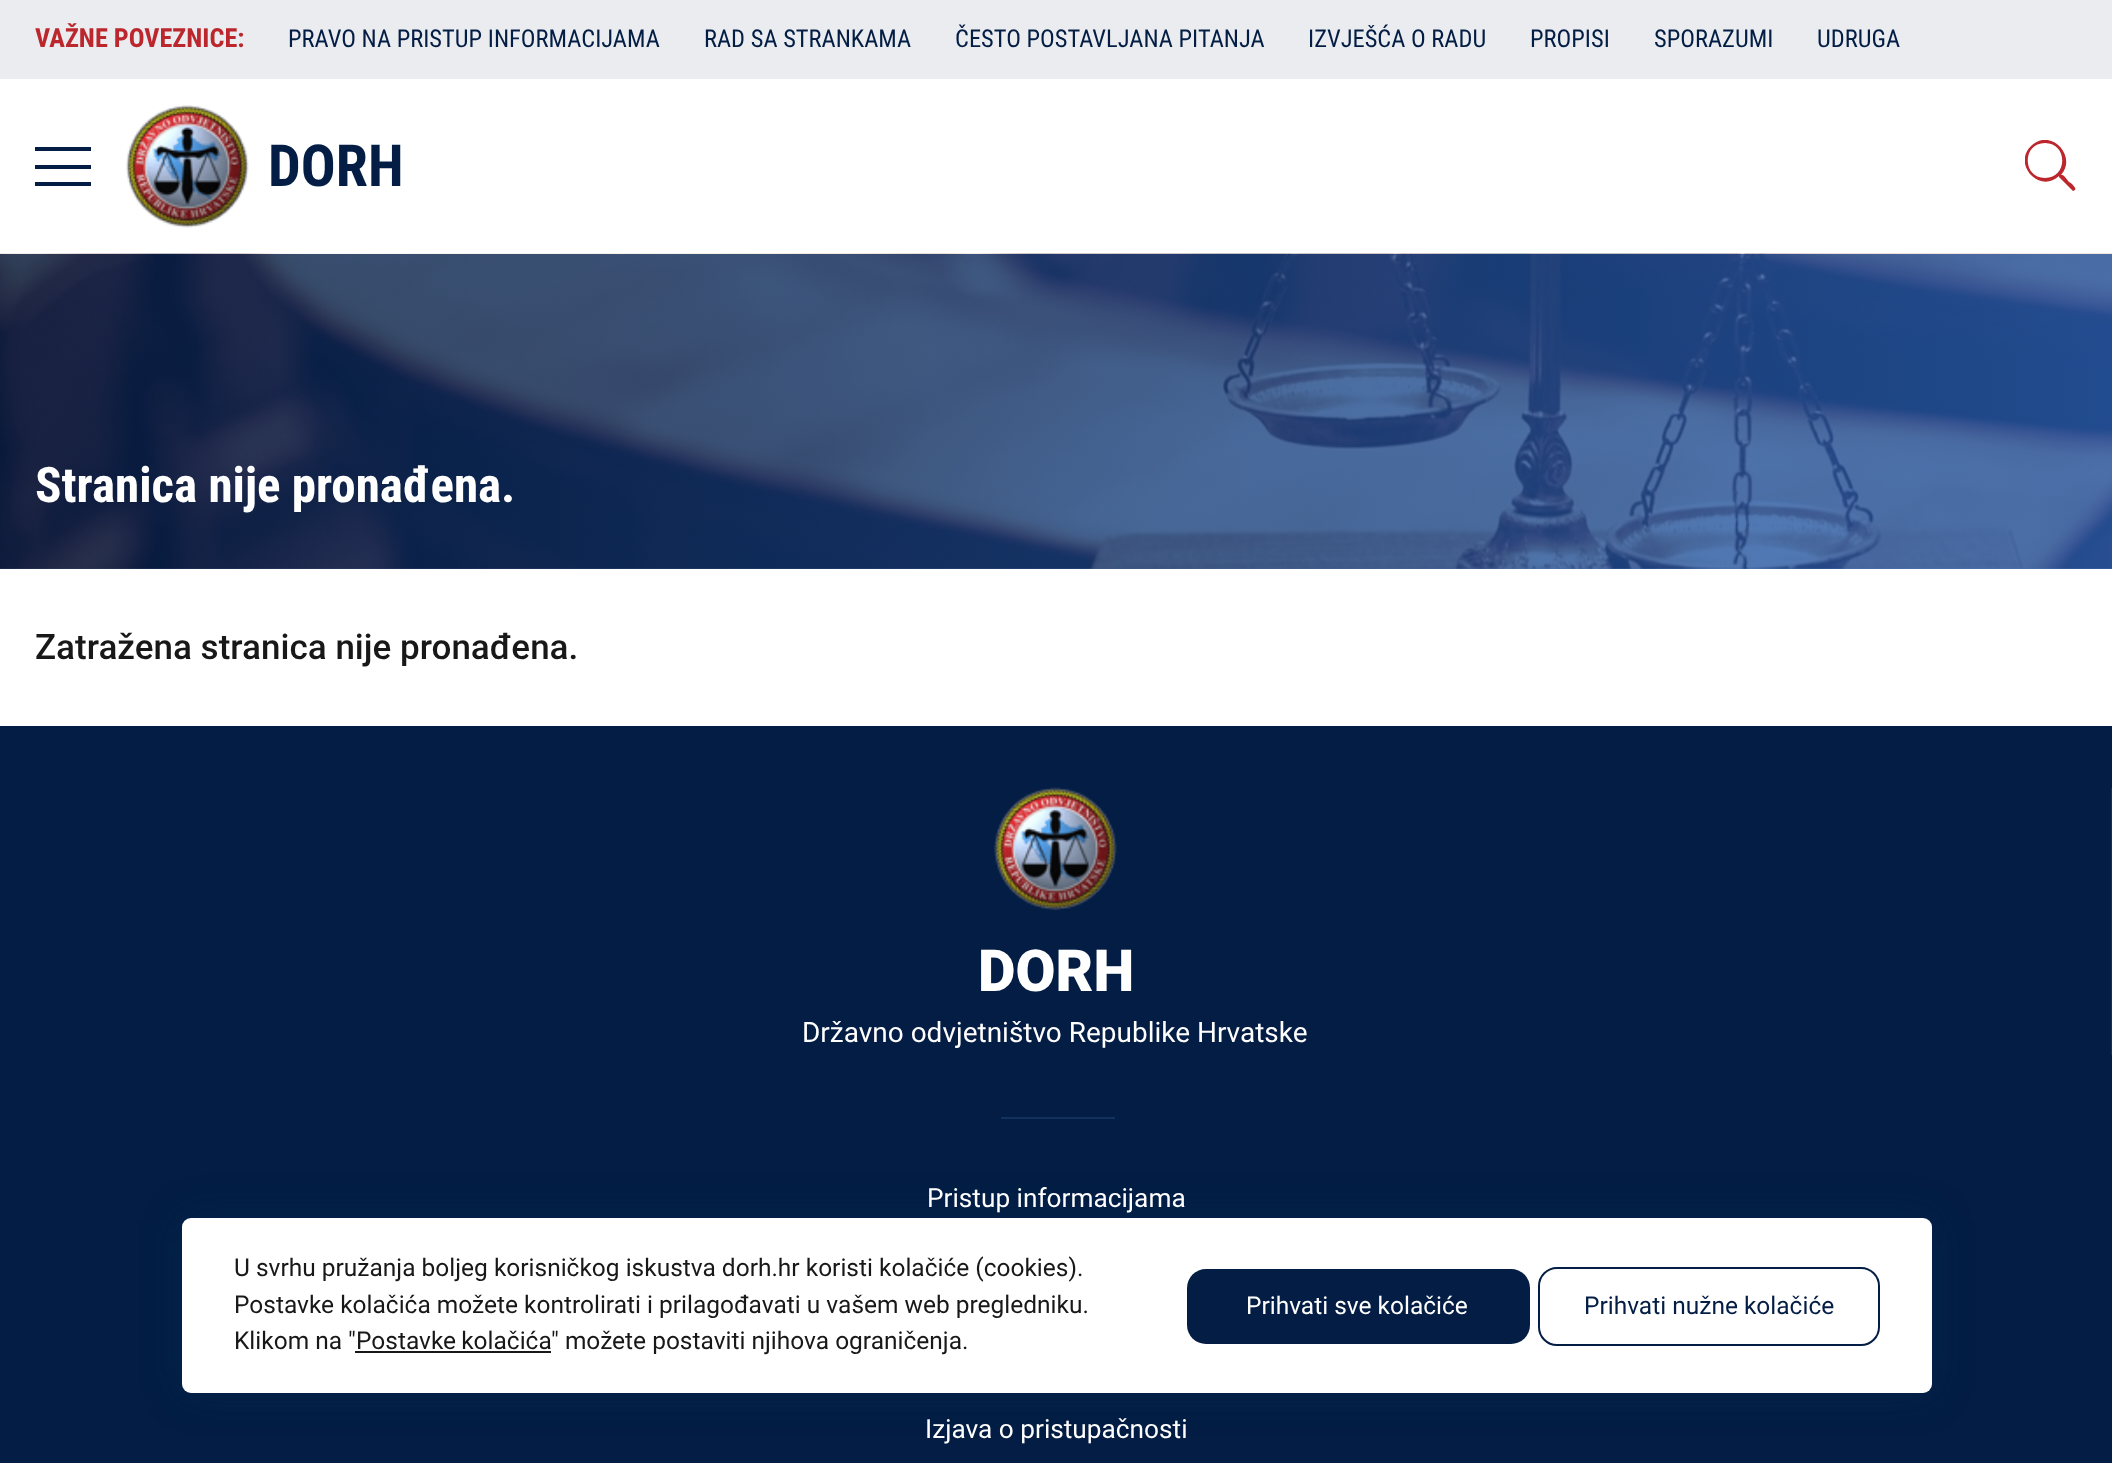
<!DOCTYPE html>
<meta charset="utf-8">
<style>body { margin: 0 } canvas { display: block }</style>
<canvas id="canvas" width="2112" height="1463"></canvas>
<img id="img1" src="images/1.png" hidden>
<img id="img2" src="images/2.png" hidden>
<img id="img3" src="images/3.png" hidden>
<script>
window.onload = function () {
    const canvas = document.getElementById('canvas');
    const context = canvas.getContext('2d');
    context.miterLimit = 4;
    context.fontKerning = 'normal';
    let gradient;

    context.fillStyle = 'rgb(255, 255, 255)';
    context.fillRect(0, 0, 2112, 1463);
    context.fillStyle = 'rgb(234, 236, 239)';
    context.fillRect(0, 0, 2112, 79);
    context.fillStyle = 'rgb(3, 29, 68)';
    context.fillRect(35, 147, 56, 4);
    context.fillRect(35, 165, 56, 4);
    context.fillRect(35, 182, 56, 4);
    context.drawImage(document.getElementById('img1'), 126, 105, 123, 123);
    context.save();
    context.beginPath();
    context.rect(2025, 140, 51, 53);
    context.clip();
    context.fillStyle = 'rgb(187, 39, 45)';
    context.beginPath();
    context.moveTo(2073, 191);
    context.lineTo(2075, 190);
    context.bezierCurveTo(2077, 188, 2070, 182, 2069, 182);
    context.lineTo(2065, 177);
    context.bezierCurveTo(2063, 175, 2063, 175, 2061, 175);
    context.bezierCurveTo(2078, 156, 2050, 127, 2031, 146);
    context.bezierCurveTo(2012, 165, 2040, 194, 2059, 176);
    context.lineTo(2059, 177);
    context.closePath();
    context.moveTo(2045, 178);
    context.bezierCurveTo(2022, 178, 2022, 143, 2045, 143);
    context.bezierCurveTo(2068, 143, 2068, 178, 2045, 178);
    context.closePath();
    context.fill();
    context.restore();
    context.drawImage(document.getElementById('img2'), 0, 253, 2112, 316);
    gradient = context.createLinearGradient(0, 411, 2112, 411);
    gradient.addColorStop(0, 'rgba(3, 29, 68, 0.79)');
    gradient.addColorStop(1, 'rgba(40, 95, 177, 0.79)');
    context.fillStyle = gradient;
    context.fillRect(0, 254, 2112, 315);
    context.fillStyle = 'rgb(3, 29, 68)';
    context.fillRect(0, 726, 2112, 737);
    context.fillStyle = 'rgb(17, 49, 95)';
    context.fillRect(2111, 788, 1, 267);
    context.drawImage(document.getElementById('img3'), 994, 787, 123, 123);
    context.fillRect(1001, 1117, 114, 2);
    context.fillStyle = 'rgba(4, 57, 94, 0.25)';
    context.filter = 'blur(21px)';
    context.beginPath();
    context.roundRect(182, 1218, 1750, 175, 9);
    context.fill();
    context.filter = 'none';
    context.fillStyle = 'rgb(255, 255, 255)';
    context.beginPath();
    context.roundRect(182, 1218, 1750, 175, 9);
    context.fill();
    context.fillStyle = 'rgb(24, 24, 24)';
    context.fillRect(355, 1351, 196, 2);
    context.fillStyle = 'rgb(3, 29, 68)';
    context.beginPath();
    context.roundRect(1187, 1269, 343, 75, 19);
    context.fill();
    context.beginPath();
    context.roundRect(1539, 1268, 340, 77, 18);
    context.strokeStyle = 'rgb(3, 29, 68)';
    context.lineWidth = 2;
    context.stroke();
    context.font = 'bold 26.25px Roboto Condensed';
    context.fillStyle = 'rgb(187, 39, 45)';
    context.fillText('VAŽNE POVEZNICE:', 35, 47);
    context.font = '24.5px Roboto Condensed';
    context.fillStyle = 'rgb(3, 29, 68)';
    context.fillText('PRAVO NA PRISTUP INFORMACIJAMA', 288, 47);
    context.fillText('RAD SA STRANKAMA', 704, 47);
    context.fillText('ČESTO POSTAVLJANA PITANJA', 955, 47);
    context.fillText('IZVJEŠĆA O RADU', 1308, 47);
    context.fillText('PROPISI', 1530, 47);
    context.fillText('SPORAZUMI', 1654, 47);
    context.fillText('UDRUGA', 1817, 47);
    context.font = 'bold 58px Roboto Condensed';
    context.fillText('DORH', 268, 186);
    context.font = 'bold 49px Roboto Condensed';
    context.fillStyle = 'rgb(255, 255, 255)';
    context.fillText('Stranica nije pronađena.', 35, 502);
    context.font = '500 35px Roboto';
    context.fillStyle = 'rgb(24, 24, 24)';
    context.fillText('Zatražena stranica nije pronađena.', 35, 659);
    context.font = '900 58px Roboto';
    context.fillStyle = 'rgb(255, 255, 255)';
    context.fillText('DORH', 978, 991);
    context.font = '28px Roboto';
    context.fillText('Državno odvjetništvo Republike Hrvatske', 802, 1042);
    context.font = '26.25px Roboto';
    context.fillText('Pristup informacijama', 927, 1207);
    context.fillText('Izjava o pristupačnosti', 925, 1438);
    context.font = '24.5px Roboto';
    context.fillStyle = 'rgb(24, 24, 24)';
    context.fillText('U svrhu pružanja boljeg korisničkog iskustva dorh.hr koristi kolačiće (cookies).', 234, 1276);
    context.fillText('Postavke kolačića možete kontrolirati i prilagođavati u vašem web pregledniku.', 234, 1313);
    context.fillText('Klikom na "', 234, 1349);
    context.wordSpacing = '-1px';
    context.fillText('Postavke kolačića', 356, 1349);
    context.wordSpacing = '0px';
    context.fillText('" možete postaviti njihova ograničenja.', 551, 1349);
    context.fillStyle = 'rgb(255, 255, 255)';
    context.fillText('Prihvati sve kolačiće', 1246, 1314);
    context.fillStyle = 'rgb(3, 29, 68)';
    context.fillText('Prihvati nužne kolačiće', 1584, 1314);
};
</script>
